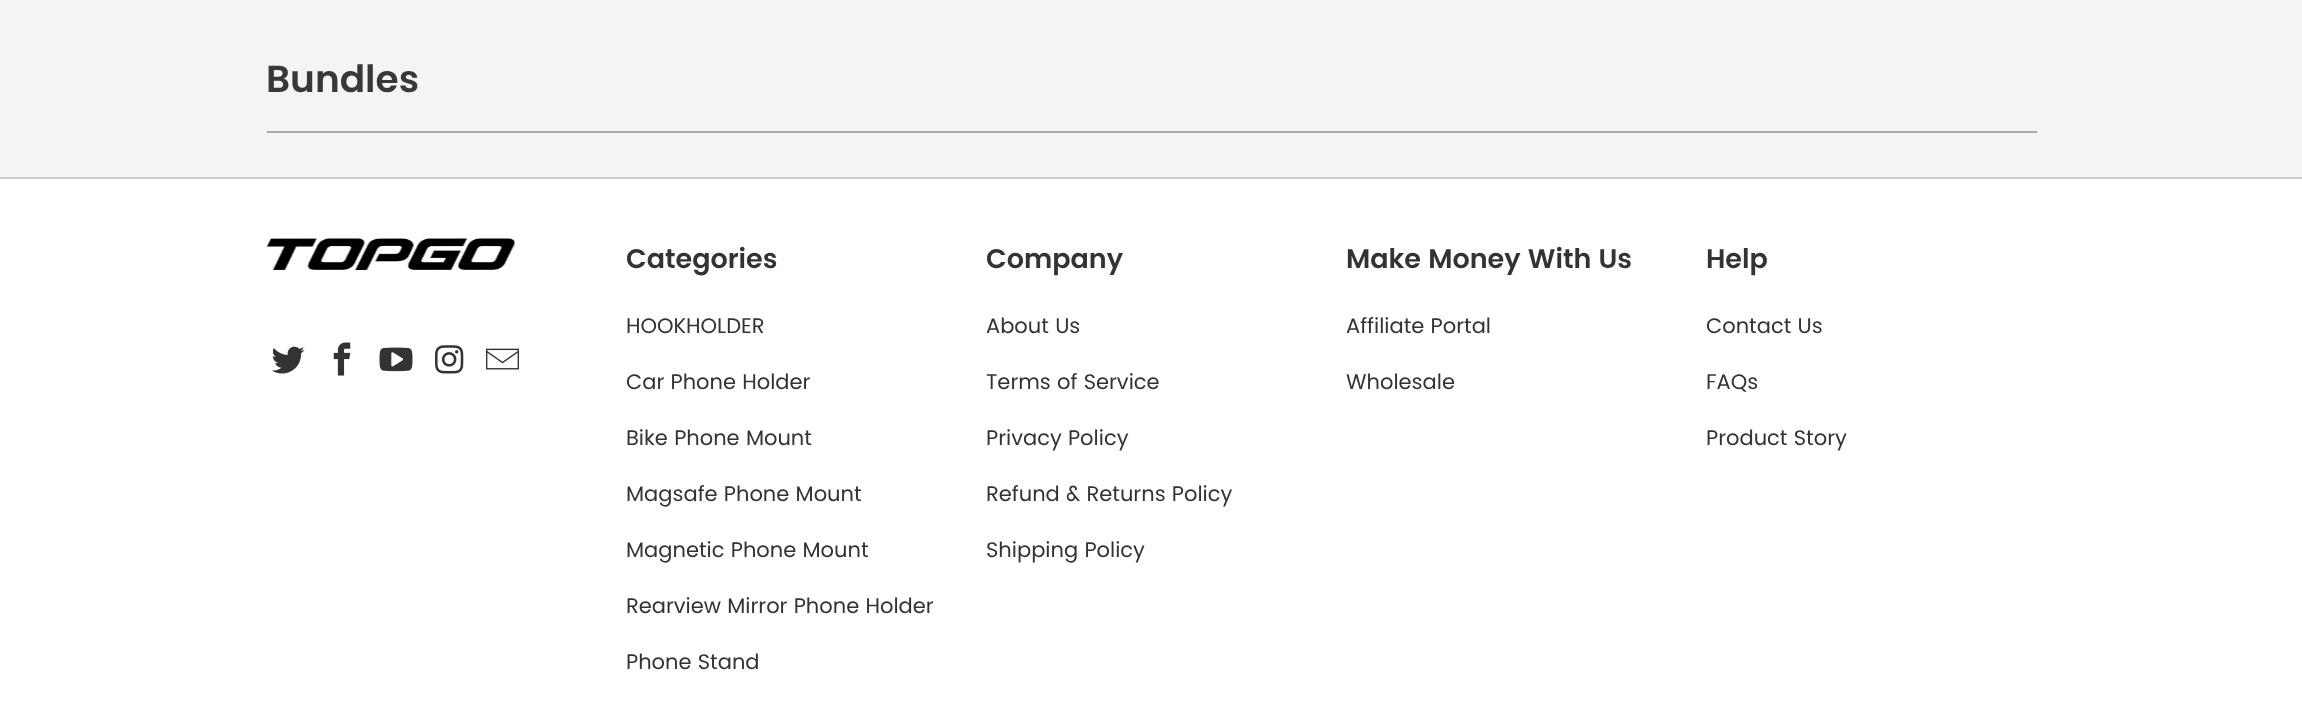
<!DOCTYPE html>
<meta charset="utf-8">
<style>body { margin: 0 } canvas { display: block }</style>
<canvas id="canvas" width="2302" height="713"></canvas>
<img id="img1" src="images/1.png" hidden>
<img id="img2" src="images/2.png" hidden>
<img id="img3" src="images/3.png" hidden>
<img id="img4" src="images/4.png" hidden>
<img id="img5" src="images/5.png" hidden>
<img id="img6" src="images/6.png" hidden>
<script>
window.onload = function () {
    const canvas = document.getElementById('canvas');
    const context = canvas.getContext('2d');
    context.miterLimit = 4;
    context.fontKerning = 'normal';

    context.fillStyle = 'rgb(244, 244, 244)';
    context.fillRect(0, 0, 2302, 713);
    context.fillStyle = 'rgb(170, 170, 170)';
    context.fillRect(267, 131, 1770, 2);
    context.fillStyle = 'rgb(255, 255, 255)';
    context.fillRect(0, 179, 2302, 534);
    context.fillStyle = 'rgb(204, 204, 204)';
    context.fillRect(0, 177, 2302, 2);
    context.drawImage(document.getElementById('img1'), 266, 238, 249, 32);
    context.drawImage(document.getElementById('img2'), 271, 346, 34, 28);
    context.drawImage(document.getElementById('img3'), 333, 342, 18, 34);
    context.drawImage(document.getElementById('img4'), 379, 347, 34, 25);
    context.drawImage(document.getElementById('img5'), 435, 345, 29, 29);
    context.drawImage(document.getElementById('img6'), 486, 348, 33, 22);
    context.font = '600 37.5px Poppins';
    context.fillStyle = 'rgb(56, 56, 58)';
    context.fillText('Bundles', 266, 92);
    context.font = '600 27px Poppins';
    context.fillStyle = 'rgb(51, 51, 51)';
    context.fillText('Categories', 626, 268);
    context.font = '21px Poppins';
    context.fillText('HOOKHOLDER', 626, 333);
    context.fillText('Car Phone Holder', 626, 389);
    context.fillText('Bike Phone Mount', 626, 445);
    context.fillText('Magsafe Phone Mount', 626, 501);
    context.fillText('Magnetic Phone Mount', 626, 557);
    context.fillText('Rearview Mirror Phone Holder', 626, 613);
    context.fillText('Phone Stand', 626, 669);
    context.font = '600 27px Poppins';
    context.fillText('Company', 986, 268);
    context.font = '21px Poppins';
    context.fillText('About Us', 986, 333);
    context.fillText('Terms of Service', 986, 389);
    context.fillText('Privacy Policy', 986, 445);
    context.fillText('Refund & Returns Policy', 986, 501);
    context.fillText('Shipping Policy', 986, 557);
    context.font = '600 27px Poppins';
    context.fillText('Make Money With Us', 1346, 268);
    context.font = '21px Poppins';
    context.fillText('Affiliate Portal', 1346, 333);
    context.fillText('Wholesale', 1346, 389);
    context.font = '600 27px Poppins';
    context.fillText('Help', 1706, 268);
    context.font = '21px Poppins';
    context.fillText('Contact Us', 1706, 333);
    context.fillText('FAQs', 1706, 389);
    context.fillText('Product Story', 1706, 445);
};
</script>
